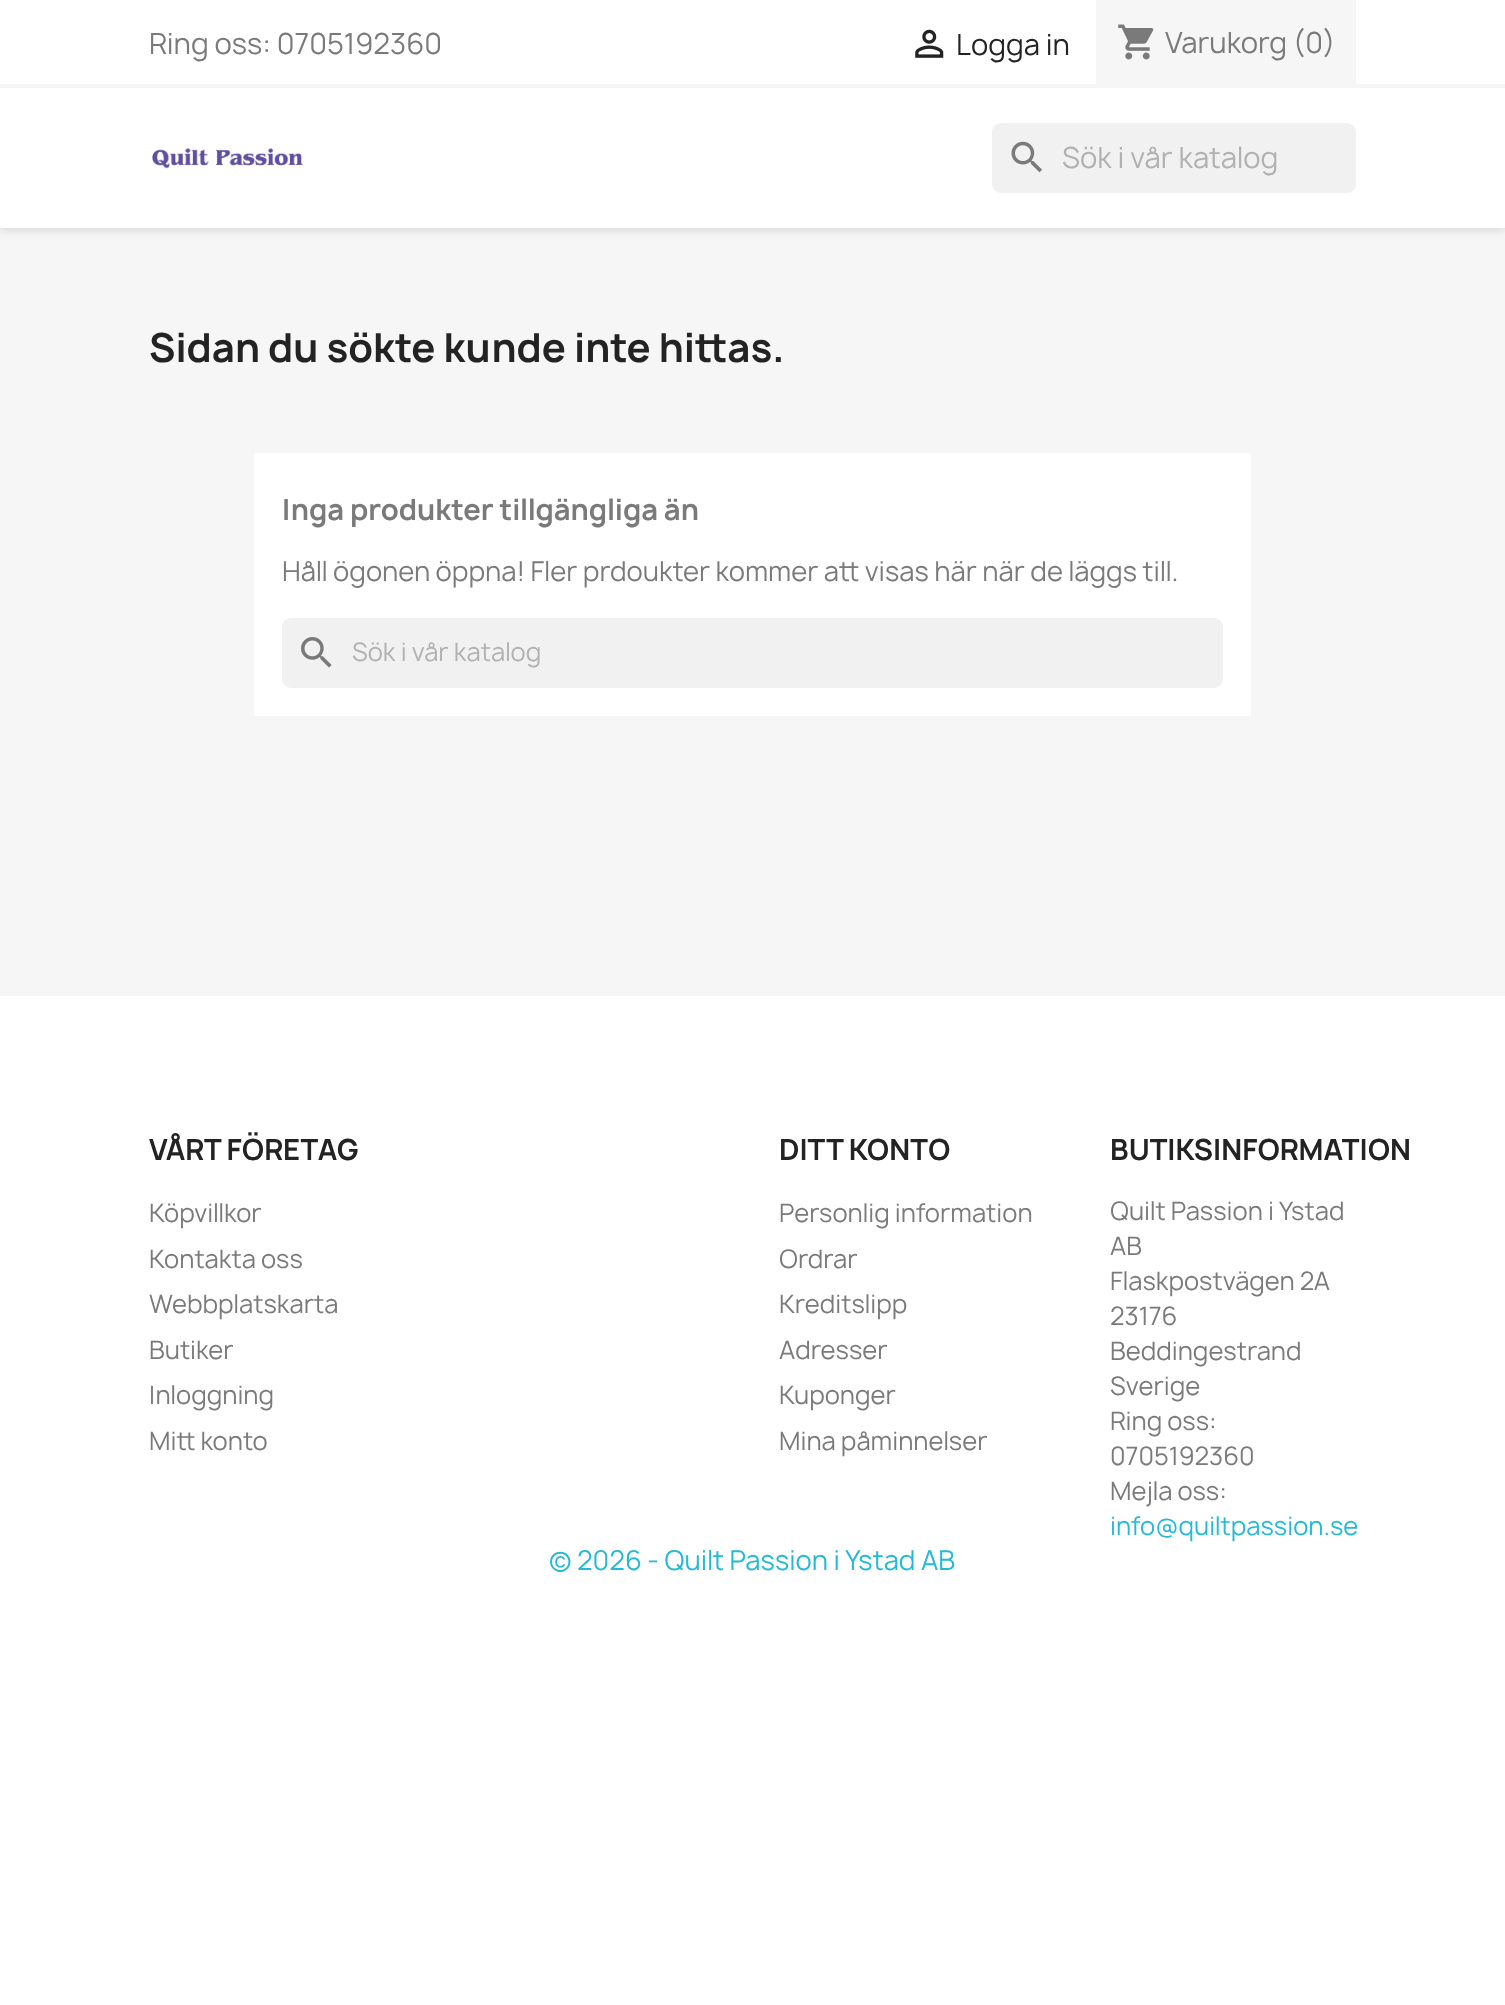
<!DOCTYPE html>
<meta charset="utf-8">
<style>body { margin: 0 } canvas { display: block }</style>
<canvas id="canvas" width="1505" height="2005"></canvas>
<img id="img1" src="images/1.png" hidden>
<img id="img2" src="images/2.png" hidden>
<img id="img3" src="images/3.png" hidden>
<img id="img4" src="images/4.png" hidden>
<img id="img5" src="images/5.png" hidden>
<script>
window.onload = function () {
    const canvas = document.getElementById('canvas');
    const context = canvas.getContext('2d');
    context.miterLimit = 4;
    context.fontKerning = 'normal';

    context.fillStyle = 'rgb(255, 255, 255)';
    context.fillRect(0, 0, 1505, 2005);
    context.fillStyle = 'rgb(246, 246, 246)';
    context.fillRect(0, 228, 1505, 768);
    context.fillStyle = 'rgba(0, 0, 0, 0.11)';
    context.filter = 'blur(4.5px)';
    context.beginPath();
    context.rect(0, 4, 1505, 227);
    context.fill();
    context.filter = 'none';
    context.fillStyle = 'rgb(255, 255, 255)';
    context.fillRect(0, 0, 1505, 228);
    context.fillStyle = 'rgb(246, 246, 246)';
    context.fillRect(0, 84, 1505, 4);
    context.drawImage(document.getElementById('img1'), 915, 29, 29, 29);
    context.fillRect(1096, 0, 260, 84);
    context.drawImage(document.getElementById('img2'), 1118, 24, 36, 36);
    context.drawImage(document.getElementById('img3'), 152, 148, 151, 21);
    context.fillStyle = 'rgb(241, 241, 241)';
    context.beginPath();
    context.roundRect(992, 123, 364, 70, 9);
    context.fill();
    context.drawImage(document.getElementById('img4'), 1011, 141, 31, 32);
    context.fillStyle = 'rgb(255, 255, 255)';
    context.fillRect(254, 453, 997, 263);
    context.fillStyle = 'rgb(241, 241, 241)';
    context.beginPath();
    context.roundRect(282, 618, 941, 70, 9);
    context.fill();
    context.drawImage(document.getElementById('img5'), 301, 637, 31, 31);
    context.font = '28px Manrope';
    context.fillStyle = 'rgb(122, 122, 122)';
    context.fillText('Ring oss: 0705192360', 149, 54);
    context.fillStyle = 'rgb(35, 35, 35)';
    context.fillText('Logga in', 956, 55);
    context.fillStyle = 'rgb(122, 122, 122)';
    context.fillText('Varukorg (0)', 1165, 53);
    context.fillStyle = 'rgb(177, 177, 177)';
    context.fillText('Sök i vår katalog', 1062, 168);
    context.font = 'bold 38.5px Manrope';
    context.fillStyle = 'rgb(35, 35, 35)';
    context.fillText('Sidan du sökte kunde inte hittas.', 149, 362);
    context.font = 'bold 28px Manrope';
    context.fillStyle = 'rgb(122, 122, 122)';
    context.fillText('Inga produkter tillgängliga än', 282, 520);
    context.font = '26.25px Manrope';
    context.fillText('Håll ögonen öppna! Fler prdoukter kommer att visas här när de läggs till.', 282, 581);
    context.font = '24.5px Manrope';
    context.fillStyle = 'rgb(177, 177, 177)';
    context.fillText('Sök i vår katalog', 352, 661);
    context.font = 'bold 28px Manrope';
    context.fillStyle = 'rgb(35, 35, 35)';
    context.fillText('VÅRT FÖRETAG', 149, 1160);
    context.font = '24.5px Manrope';
    context.fillStyle = 'rgb(122, 122, 122)';
    context.fillText('Köpvillkor', 149, 1222);
    context.fillText('Kontakta oss', 149, 1268);
    context.fillText('Webbplatskarta', 149, 1313);
    context.fillText('Butiker', 149, 1359);
    context.fillText('Inloggning', 149, 1404);
    context.fillText('Mitt konto', 149, 1450);
    context.font = 'bold 28px Manrope';
    context.fillStyle = 'rgb(35, 35, 35)';
    context.fillText('DITT KONTO', 779, 1160);
    context.font = '24.5px Manrope';
    context.fillStyle = 'rgb(122, 122, 122)';
    context.fillText('Personlig information', 779, 1222);
    context.fillText('Ordrar', 779, 1268);
    context.fillText('Kreditslipp', 779, 1313);
    context.fillText('Adresser', 779, 1359);
    context.fillText('Kuponger', 779, 1404);
    context.fillText('Mina påminnelser', 779, 1450);
    context.font = 'bold 28px Manrope';
    context.fillStyle = 'rgb(35, 35, 35)';
    context.fillText('BUTIKSINFORMATION', 1110, 1160);
    context.font = '24.5px Manrope';
    context.fillStyle = 'rgb(122, 122, 122)';
    context.fillText('Quilt Passion i Ystad', 1110, 1220);
    context.fillText('AB', 1110, 1255);
    context.fillText('Flaskpostvägen 2A', 1110, 1290);
    context.fillText('23176', 1110, 1325);
    context.fillText('Beddingestrand', 1110, 1360);
    context.fillText('Sverige', 1110, 1395);
    context.fillText('Ring oss:', 1110, 1430);
    context.fillText('0705192360', 1110, 1465);
    context.fillText('Mejla oss:', 1110, 1500);
    context.fillStyle = 'rgb(36, 185, 215)';
    context.fillText('info@quiltpassion.se', 1110, 1535);
    context.font = '26.25px Manrope';
    context.fillText('© 2026 - Quilt Passion i Ystad AB', 549, 1570);
};
</script>
